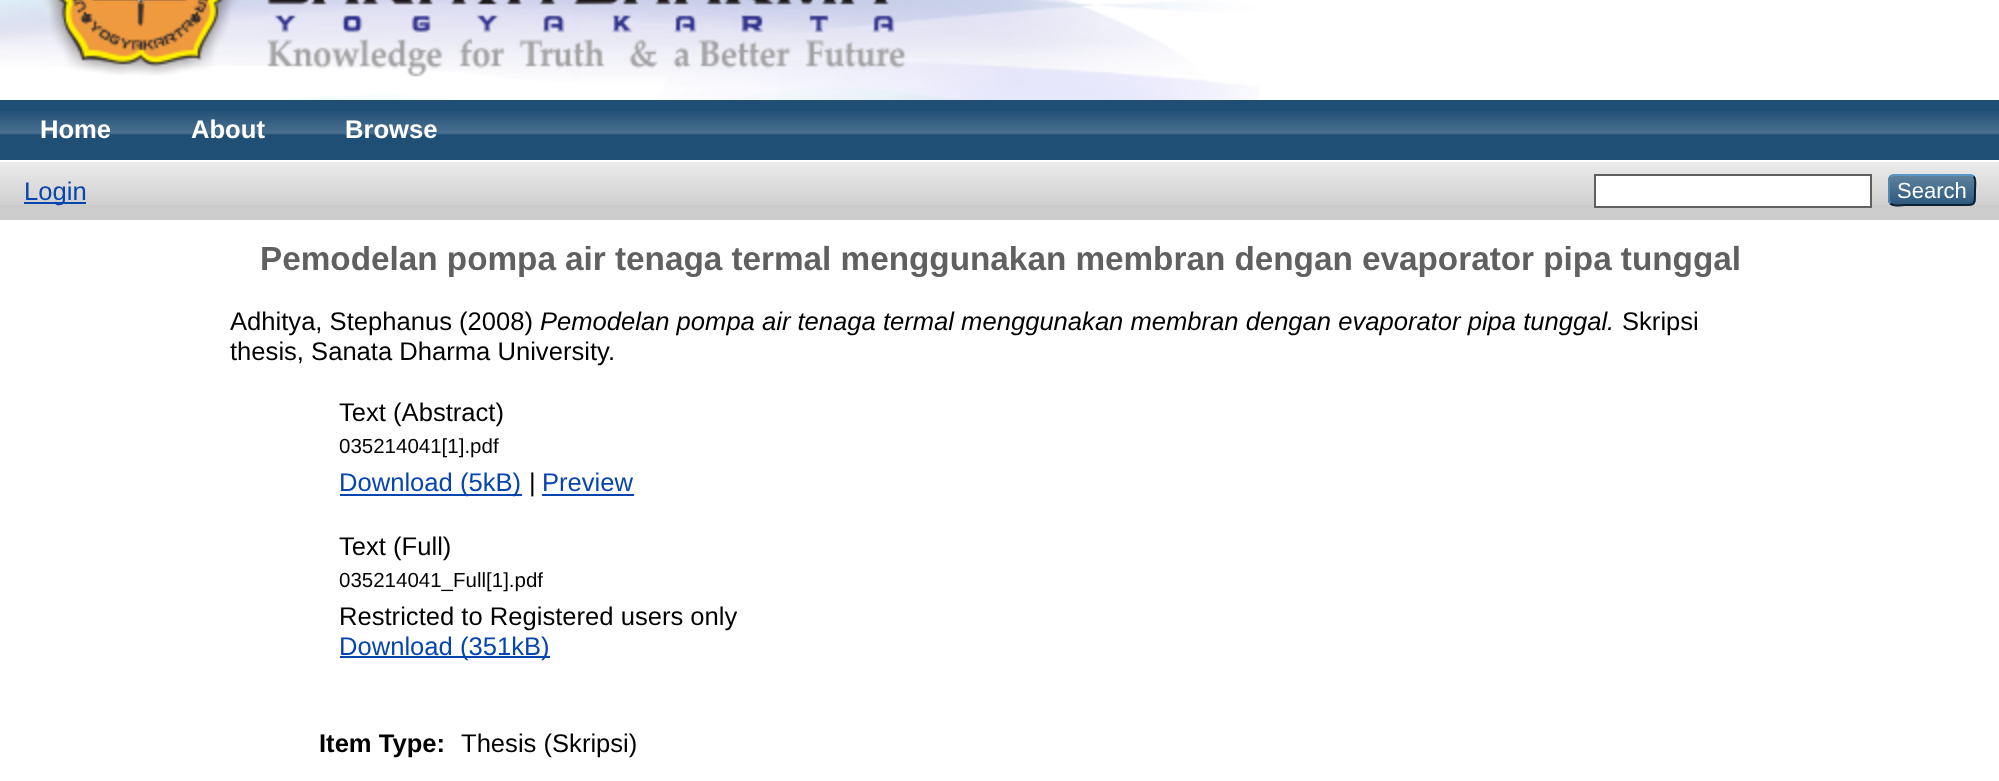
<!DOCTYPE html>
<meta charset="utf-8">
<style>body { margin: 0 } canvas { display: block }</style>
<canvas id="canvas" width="1999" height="781"></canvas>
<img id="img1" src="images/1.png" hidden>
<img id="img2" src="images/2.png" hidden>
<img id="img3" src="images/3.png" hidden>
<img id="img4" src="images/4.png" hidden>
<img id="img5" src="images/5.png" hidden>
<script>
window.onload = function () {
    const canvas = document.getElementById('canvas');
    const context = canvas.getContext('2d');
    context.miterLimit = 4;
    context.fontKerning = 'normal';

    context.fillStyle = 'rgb(255, 255, 255)';
    context.fillRect(0, 0, 1999, 781);
    context.drawImage(document.getElementById('img1'), 0, 0, 1259, 100);
    context.drawImage(document.getElementById('img2'), 41, 0, 865, 77);
    context.fillStyle = 'rgb(32, 79, 118)';
    context.fillRect(0, 100, 1999, 60);
    context.drawImage(document.getElementById('img3'), 0, 111, 1999, 24);
    context.fillStyle = 'rgb(204, 204, 204)';
    context.fillRect(0, 162, 1999, 58);
    context.drawImage(document.getElementById('img4'), 0, 162, 1999, 43);
    context.fillStyle = 'rgb(6, 69, 173)';
    context.fillRect(24, 202, 62, 2);
    context.fillStyle = 'rgb(255, 255, 255)';
    context.beginPath();
    context.rect(1595, 175, 276, 32);
    context.fill();
    context.strokeStyle = 'rgb(96, 96, 96)';
    context.lineWidth = 2;
    context.stroke();
    context.fillStyle = 'rgb(31, 79, 118)';
    context.beginPath();
    context.roundRect(1888, 174, 88, 32, 6);
    context.fill();
    context.drawImage(document.getElementById('img5'), 1888, 174, 88, 32);
    context.beginPath();
    context.moveTo(1890.5, 176.5);
    context.lineTo(1893.5, 175);
    context.lineTo(1970.5, 175);
    context.lineTo(1973.5, 176.5);
    context.strokeStyle = 'rgb(91, 151, 199)';
    context.stroke();
    context.beginPath();
    context.moveTo(1973.5, 176.5);
    context.bezierCurveTo(1976.5, 179, 1975, 186.5, 1975, 190);
    context.bezierCurveTo(1975, 207, 1975.5, 205, 1957.5, 205);
    context.lineTo(1906.5, 205);
    context.bezierCurveTo(1905.5, 205, 1894, 207, 1890.5, 203.5);
    context.strokeStyle = 'rgb(13, 33, 49)';
    context.stroke();
    context.beginPath();
    context.moveTo(1890.5, 203.5);
    context.bezierCurveTo(1889.5, 202.5, 1889, 201.5, 1889, 200);
    context.lineTo(1889, 180);
    context.bezierCurveTo(1889, 178.5, 1889.5, 177.5, 1890.5, 176.5);
    context.strokeStyle = 'rgb(82, 135, 179)';
    context.stroke();
    context.fillStyle = 'rgb(6, 69, 173)';
    context.fillRect(340, 494, 182, 2);
    context.fillRect(542, 494, 92, 2);
    context.fillRect(340, 656, 210, 2);
    context.font = 'bold 25.6px Liberation Sans';
    context.fillStyle = 'rgb(255, 255, 255)';
    context.fillText('Home', 40, 138);
    context.fillText('About', 191, 138);
    context.fillText('Browse', 345, 138);
    context.font = '25.6px Liberation Sans';
    context.fillStyle = 'rgb(6, 69, 173)';
    context.fillText('Login', 24, 200);
    context.font = '22px Liberation Sans';
    context.fillStyle = 'rgb(255, 255, 255)';
    context.fillText('Search', 1897, 198);
    context.wordSpacing = '-0.1px';
    context.font = 'bold 33.3px Liberation Sans';
    context.fillStyle = 'rgb(96, 96, 96)';
    context.fillText('Pemodelan pompa air tenaga termal menggunakan membran dengan evaporator pipa tunggal', 260, 270);
    context.wordSpacing = '0px';
    context.font = '25.6px Liberation Sans';
    context.fillStyle = 'rgb(0, 0, 0)';
    context.fillText('Adhitya, Stephanus (2008)', 230, 330);
    context.font = 'italic 25.6px Liberation Sans';
    context.fillText('Pemodelan pompa air tenaga termal menggunakan membran dengan evaporator pipa tunggal.', 540, 330);
    context.font = '25.6px Liberation Sans';
    context.fillText('Skripsi', 1622, 330);
    context.fillText('thesis, Sanata Dharma University.', 230, 360);
    context.fillText('Text (Abstract)', 339, 421);
    context.font = '20.5px Liberation Sans';
    context.fillText('035214041[1].pdf', 339, 453);
    context.font = '25.6px Liberation Sans';
    context.fillStyle = 'rgb(6, 69, 173)';
    context.fillText('Download (5kB)', 339, 491);
    context.fillStyle = 'rgb(0, 0, 0)';
    context.fillText('|', 529, 491);
    context.fillStyle = 'rgb(6, 69, 173)';
    context.fillText('Preview', 542, 491);
    context.fillStyle = 'rgb(0, 0, 0)';
    context.fillText('Text (Full)', 339, 555);
    context.font = '20.5px Liberation Sans';
    context.fillText('035214041_Full[1].pdf', 339, 587);
    context.font = '25.6px Liberation Sans';
    context.fillText('Restricted to Registered users only', 339, 625);
    context.fillStyle = 'rgb(6, 69, 173)';
    context.fillText('Download (351kB)', 339, 655);
    context.font = 'bold 25.6px Liberation Sans';
    context.fillStyle = 'rgb(0, 0, 0)';
    context.fillText('Item Type:', 319, 752);
    context.font = '25.6px Liberation Sans';
    context.fillText('Thesis (Skripsi)', 461, 752);
};
</script>
